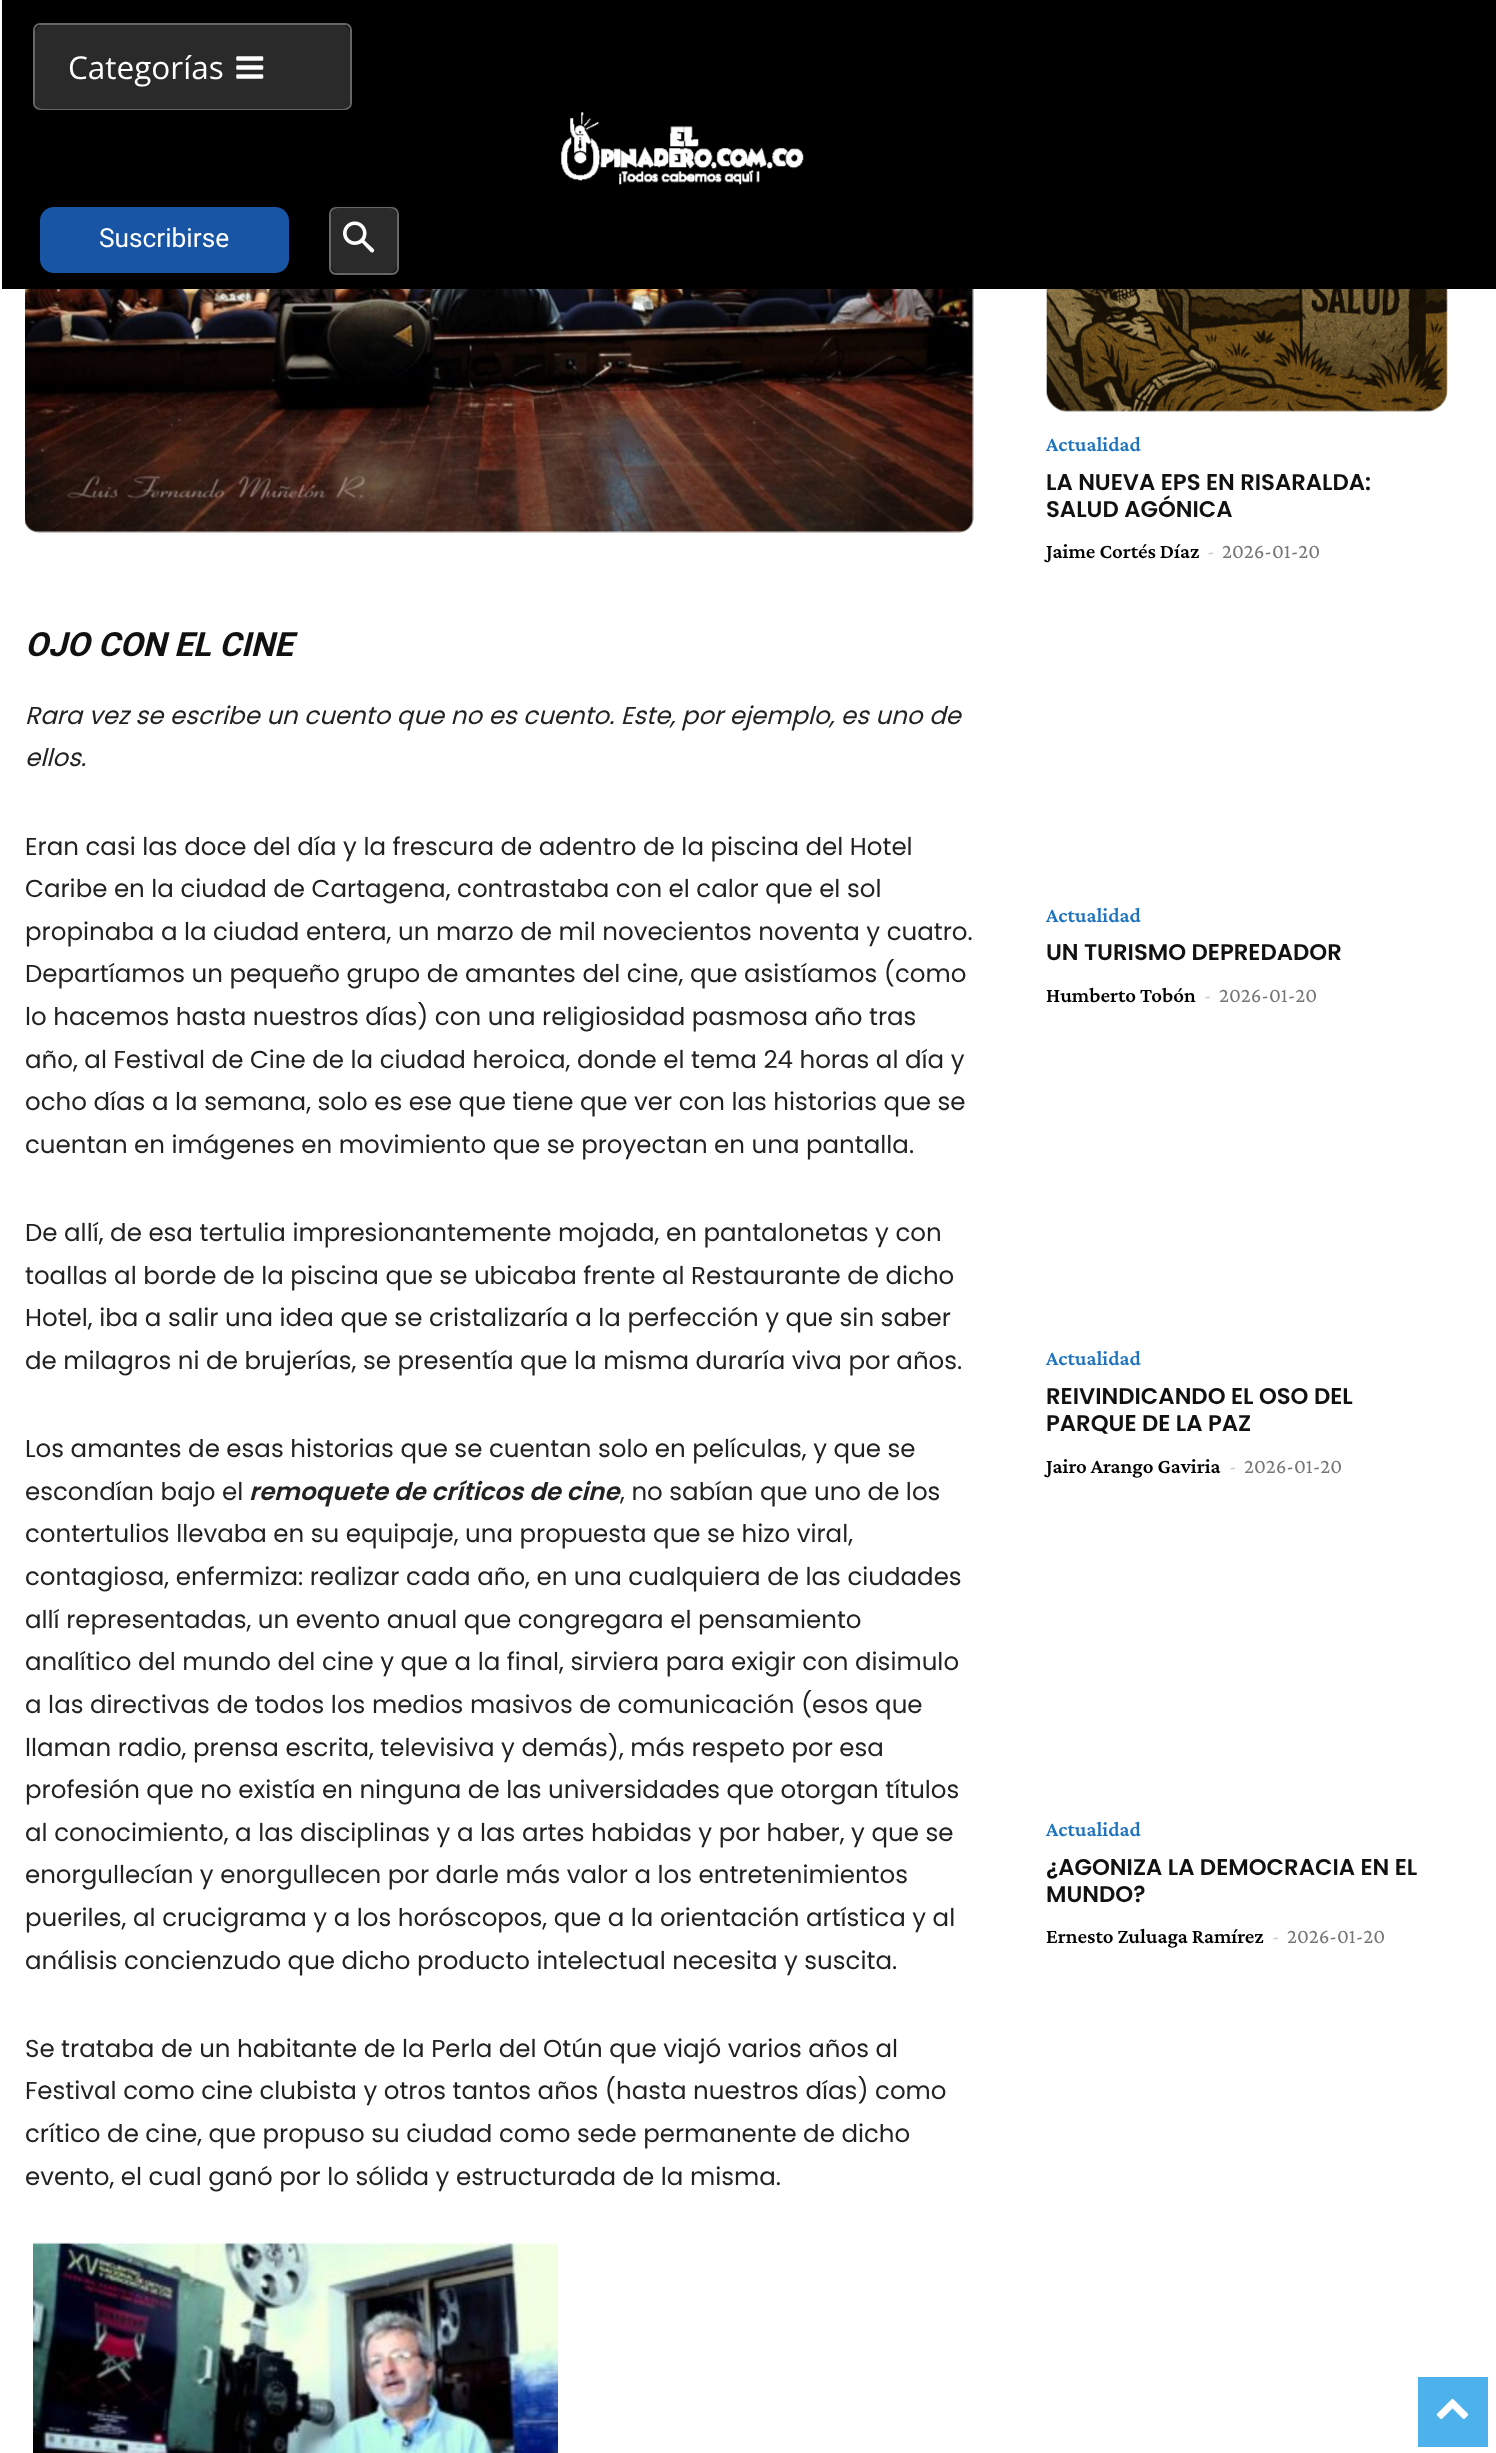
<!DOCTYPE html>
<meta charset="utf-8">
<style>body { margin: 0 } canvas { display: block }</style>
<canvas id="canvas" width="1496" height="2453"></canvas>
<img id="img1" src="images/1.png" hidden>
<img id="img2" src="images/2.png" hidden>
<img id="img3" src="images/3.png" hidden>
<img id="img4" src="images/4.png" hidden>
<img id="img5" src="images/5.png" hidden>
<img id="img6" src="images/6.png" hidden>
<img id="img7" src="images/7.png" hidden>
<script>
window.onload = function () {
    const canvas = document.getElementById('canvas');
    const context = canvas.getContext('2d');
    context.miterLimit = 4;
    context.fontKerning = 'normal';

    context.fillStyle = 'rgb(255, 255, 255)';
    context.fillRect(0, 0, 1496, 2453);
    context.fillStyle = 'rgb(0, 0, 0)';
    context.fillRect(2, 0, 1494, 289);
    context.beginPath();
    context.roundRect(34, 24, 317, 85, 6);
    context.strokeStyle = 'rgb(102, 102, 102)';
    context.lineWidth = 2;
    context.stroke();
    context.fillStyle = 'rgb(42, 42, 42)';
    context.beginPath();
    context.roundRect(35, 25, 315, 84, 7);
    context.fill();
    context.drawImage(document.getElementById('img1'), 236, 56, 28, 23);
    context.drawImage(document.getElementById('img2'), 561, 112, 243, 73);
    context.fillStyle = 'rgb(25, 85, 165)';
    context.beginPath();
    context.roundRect(40, 207, 249, 66, 14);
    context.fill();
    context.beginPath();
    context.roundRect(330, 208, 68, 66, 6);
    context.stroke();
    context.fillStyle = 'rgb(42, 42, 42)';
    context.beginPath();
    context.roundRect(331, 208, 66, 65, 7);
    context.fill();
    context.drawImage(document.getElementById('img3'), 343, 221, 32, 32);
    context.drawImage(document.getElementById('img4'), 25, 289, 949, 244);
    context.drawImage(document.getElementById('img5'), 33, 2242, 525, 211);
    context.drawImage(document.getElementById('img6'), 1046, 289, 402, 123);
    context.fillStyle = 'rgb(77, 178, 236)';
    context.fillRect(1418, 2377, 70, 70);
    context.drawImage(document.getElementById('img7'), 1436, 2398, 33, 21);
    context.font = '31.5px Open Sans';
    context.fillStyle = 'rgb(255, 255, 255)';
    context.fillText('Categorías', 68, 79);
    context.font = '26.25px Roboto';
    context.fillText('Suscribirse', 99, 247);
    context.font = 'italic bold 33.25px Roboto';
    context.fillStyle = 'rgb(17, 17, 17)';
    context.fillText('OJO CON EL CINE', 25, 656);
    context.font = 'italic 24.5px Poppins';
    context.fillStyle = 'rgb(34, 34, 34)';
    context.fillText('Rara vez se escribe un cuento que no es cuento. Este, por ejemplo, es uno de', 25, 724);
    context.fillText('ellos.', 25, 766);
    context.font = '24.5px Poppins';
    context.fillText('Eran casi las doce del día y la frescura de adentro de la piscina del Hotel', 25, 855);
    context.fillText('Caribe en la ciudad de Cartagena, contrastaba con el calor que el sol', 25, 897);
    context.fillText('propinaba a la ciudad entera, un marzo de mil novecientos noventa y cuatro.', 25, 940);
    context.fillText('Departíamos un pequeño grupo de amantes del cine, que asistíamos (como', 25, 982);
    context.fillText('lo hacemos hasta nuestros días) con una religiosidad pasmosa año tras', 25, 1025);
    context.fillText('año, al Festival de Cine de la ciudad heroica, donde el tema 24 horas al día y', 25, 1068);
    context.fillText('ocho días a la semana, solo es ese que tiene que ver con las historias que se', 25, 1110);
    context.fillText('cuentan en imágenes en movimiento que se proyectan en una pantalla.', 25, 1153);
    context.fillText('De allí, de esa tertulia impresionantemente mojada, en pantalonetas y con', 25, 1241);
    context.fillText('toallas al borde de la piscina que se ubicaba frente al Restaurante de dicho', 25, 1284);
    context.fillText('Hotel, iba a salir una idea que se cristalizaría a la perfección y que sin saber', 25, 1326);
    context.fillText('de milagros ni de brujerías, se presentía que la misma duraría viva por años.', 25, 1369);
    context.fillText('Los amantes de esas historias que se cuentan solo en películas, y que se', 25, 1457);
    context.fillText('escondían bajo el', 25, 1500);
    context.font = 'italic 600 24.5px Poppins';
    context.fillText('remoquete de críticos de cine', 249, 1500);
    context.font = '24.5px Poppins';
    context.fillText(', no sabían que uno de los', 620, 1500);
    context.fillText('contertulios llevaba en su equipaje, una propuesta que se hizo viral,', 25, 1542);
    context.fillText('contagiosa, enfermiza: realizar cada año, en una cualquiera de las ciudades', 25, 1585);
    context.fillText('allí representadas, un evento anual que congregara el pensamiento', 25, 1628);
    context.fillText('analítico del mundo del cine y que a la final, sirviera para exigir con disimulo', 25, 1670);
    context.fillText('a las directivas de todos los medios masivos de comunicación (esos que', 25, 1713);
    context.fillText('llaman radio, prensa escrita, televisiva y demás), más respeto por esa', 25, 1756);
    context.fillText('profesión que no existía en ninguna de las universidades que otorgan títulos', 25, 1798);
    context.fillText('al conocimiento, a las disciplinas y a las artes habidas y por haber, y que se', 25, 1841);
    context.fillText('enorgullecían y enorgullecen por darle más valor a los entretenimientos', 25, 1883);
    context.fillText('pueriles, al crucigrama y a los horóscopos, que a la orientación artística y al', 25, 1926);
    context.fillText('análisis concienzudo que dicho producto intelectual necesita y suscita.', 25, 1969);
    context.fillText('Se trataba de un habitante de la Perla del Otún que viajó varios años al', 25, 2057);
    context.fillText('Festival como cine clubista y otros tantos años (hasta nuestros días) como', 25, 2099);
    context.fillText('crítico de cine, que propuso su ciudad como sede permanente de dicho', 25, 2142);
    context.fillText('evento, el cual ganó por lo sólida y estructurada de la misma.', 25, 2185);
    context.font = '600 21px Crimson Pro';
    context.fillStyle = 'rgb(30, 115, 190)';
    context.fillText('Actualidad', 1046, 451);
    context.font = '600 22.75px Poppins';
    context.fillStyle = 'rgb(17, 17, 17)';
    context.fillText('LA NUEVA EPS EN RISARALDA:', 1046, 490);
    context.fillText('SALUD AGÓNICA', 1046, 517);
    context.font = '600 21px Crimson Pro';
    context.fillStyle = 'rgb(0, 0, 0)';
    context.fillText('Jaime Cortés Díaz', 1046, 558);
    context.font = '21px Crimson Pro';
    context.fillStyle = 'rgb(204, 204, 204)';
    context.fillText('-', 1207, 558);
    context.fillStyle = 'rgb(118, 118, 118)';
    context.fillText('2026-01-20', 1222, 558);
    context.font = '600 21px Crimson Pro';
    context.fillStyle = 'rgb(30, 115, 190)';
    context.fillText('Actualidad', 1046, 922);
    context.font = '600 22.75px Poppins';
    context.fillStyle = 'rgb(17, 17, 17)';
    context.fillText('UN TURISMO DEPREDADOR', 1046, 960);
    context.font = '600 21px Crimson Pro';
    context.fillStyle = 'rgb(0, 0, 0)';
    context.fillText('Humberto Tobón', 1046, 1002);
    context.font = '21px Crimson Pro';
    context.fillStyle = 'rgb(204, 204, 204)';
    context.fillText('-', 1204, 1002);
    context.fillStyle = 'rgb(118, 118, 118)';
    context.fillText('2026-01-20', 1219, 1002);
    context.font = '600 21px Crimson Pro';
    context.fillStyle = 'rgb(30, 115, 190)';
    context.fillText('Actualidad', 1046, 1365);
    context.font = '600 22.75px Poppins';
    context.fillStyle = 'rgb(17, 17, 17)';
    context.fillText('REIVINDICANDO EL OSO DEL', 1046, 1404);
    context.fillText('PARQUE DE LA PAZ', 1046, 1431);
    context.font = '600 21px Crimson Pro';
    context.fillStyle = 'rgb(0, 0, 0)';
    context.fillText('Jairo Arango Gaviria', 1046, 1473);
    context.font = '21px Crimson Pro';
    context.fillStyle = 'rgb(204, 204, 204)';
    context.fillText('-', 1229, 1473);
    context.fillStyle = 'rgb(118, 118, 118)';
    context.fillText('2026-01-20', 1244, 1473);
    context.font = '600 21px Crimson Pro';
    context.fillStyle = 'rgb(30, 115, 190)';
    context.fillText('Actualidad', 1046, 1836);
    context.font = '600 22.75px Poppins';
    context.fillStyle = 'rgb(17, 17, 17)';
    context.fillText('¿AGONIZA LA DEMOCRACIA EN EL', 1046, 1875);
    context.fillText('MUNDO?', 1046, 1902);
    context.font = '600 21px Crimson Pro';
    context.fillStyle = 'rgb(0, 0, 0)';
    context.fillText('Ernesto Zuluaga Ramírez', 1046, 1943);
    context.font = '21px Crimson Pro';
    context.fillStyle = 'rgb(204, 204, 204)';
    context.fillText('-', 1272, 1943);
    context.fillStyle = 'rgb(118, 118, 118)';
    context.fillText('2026-01-20', 1287, 1943);
};
</script>
